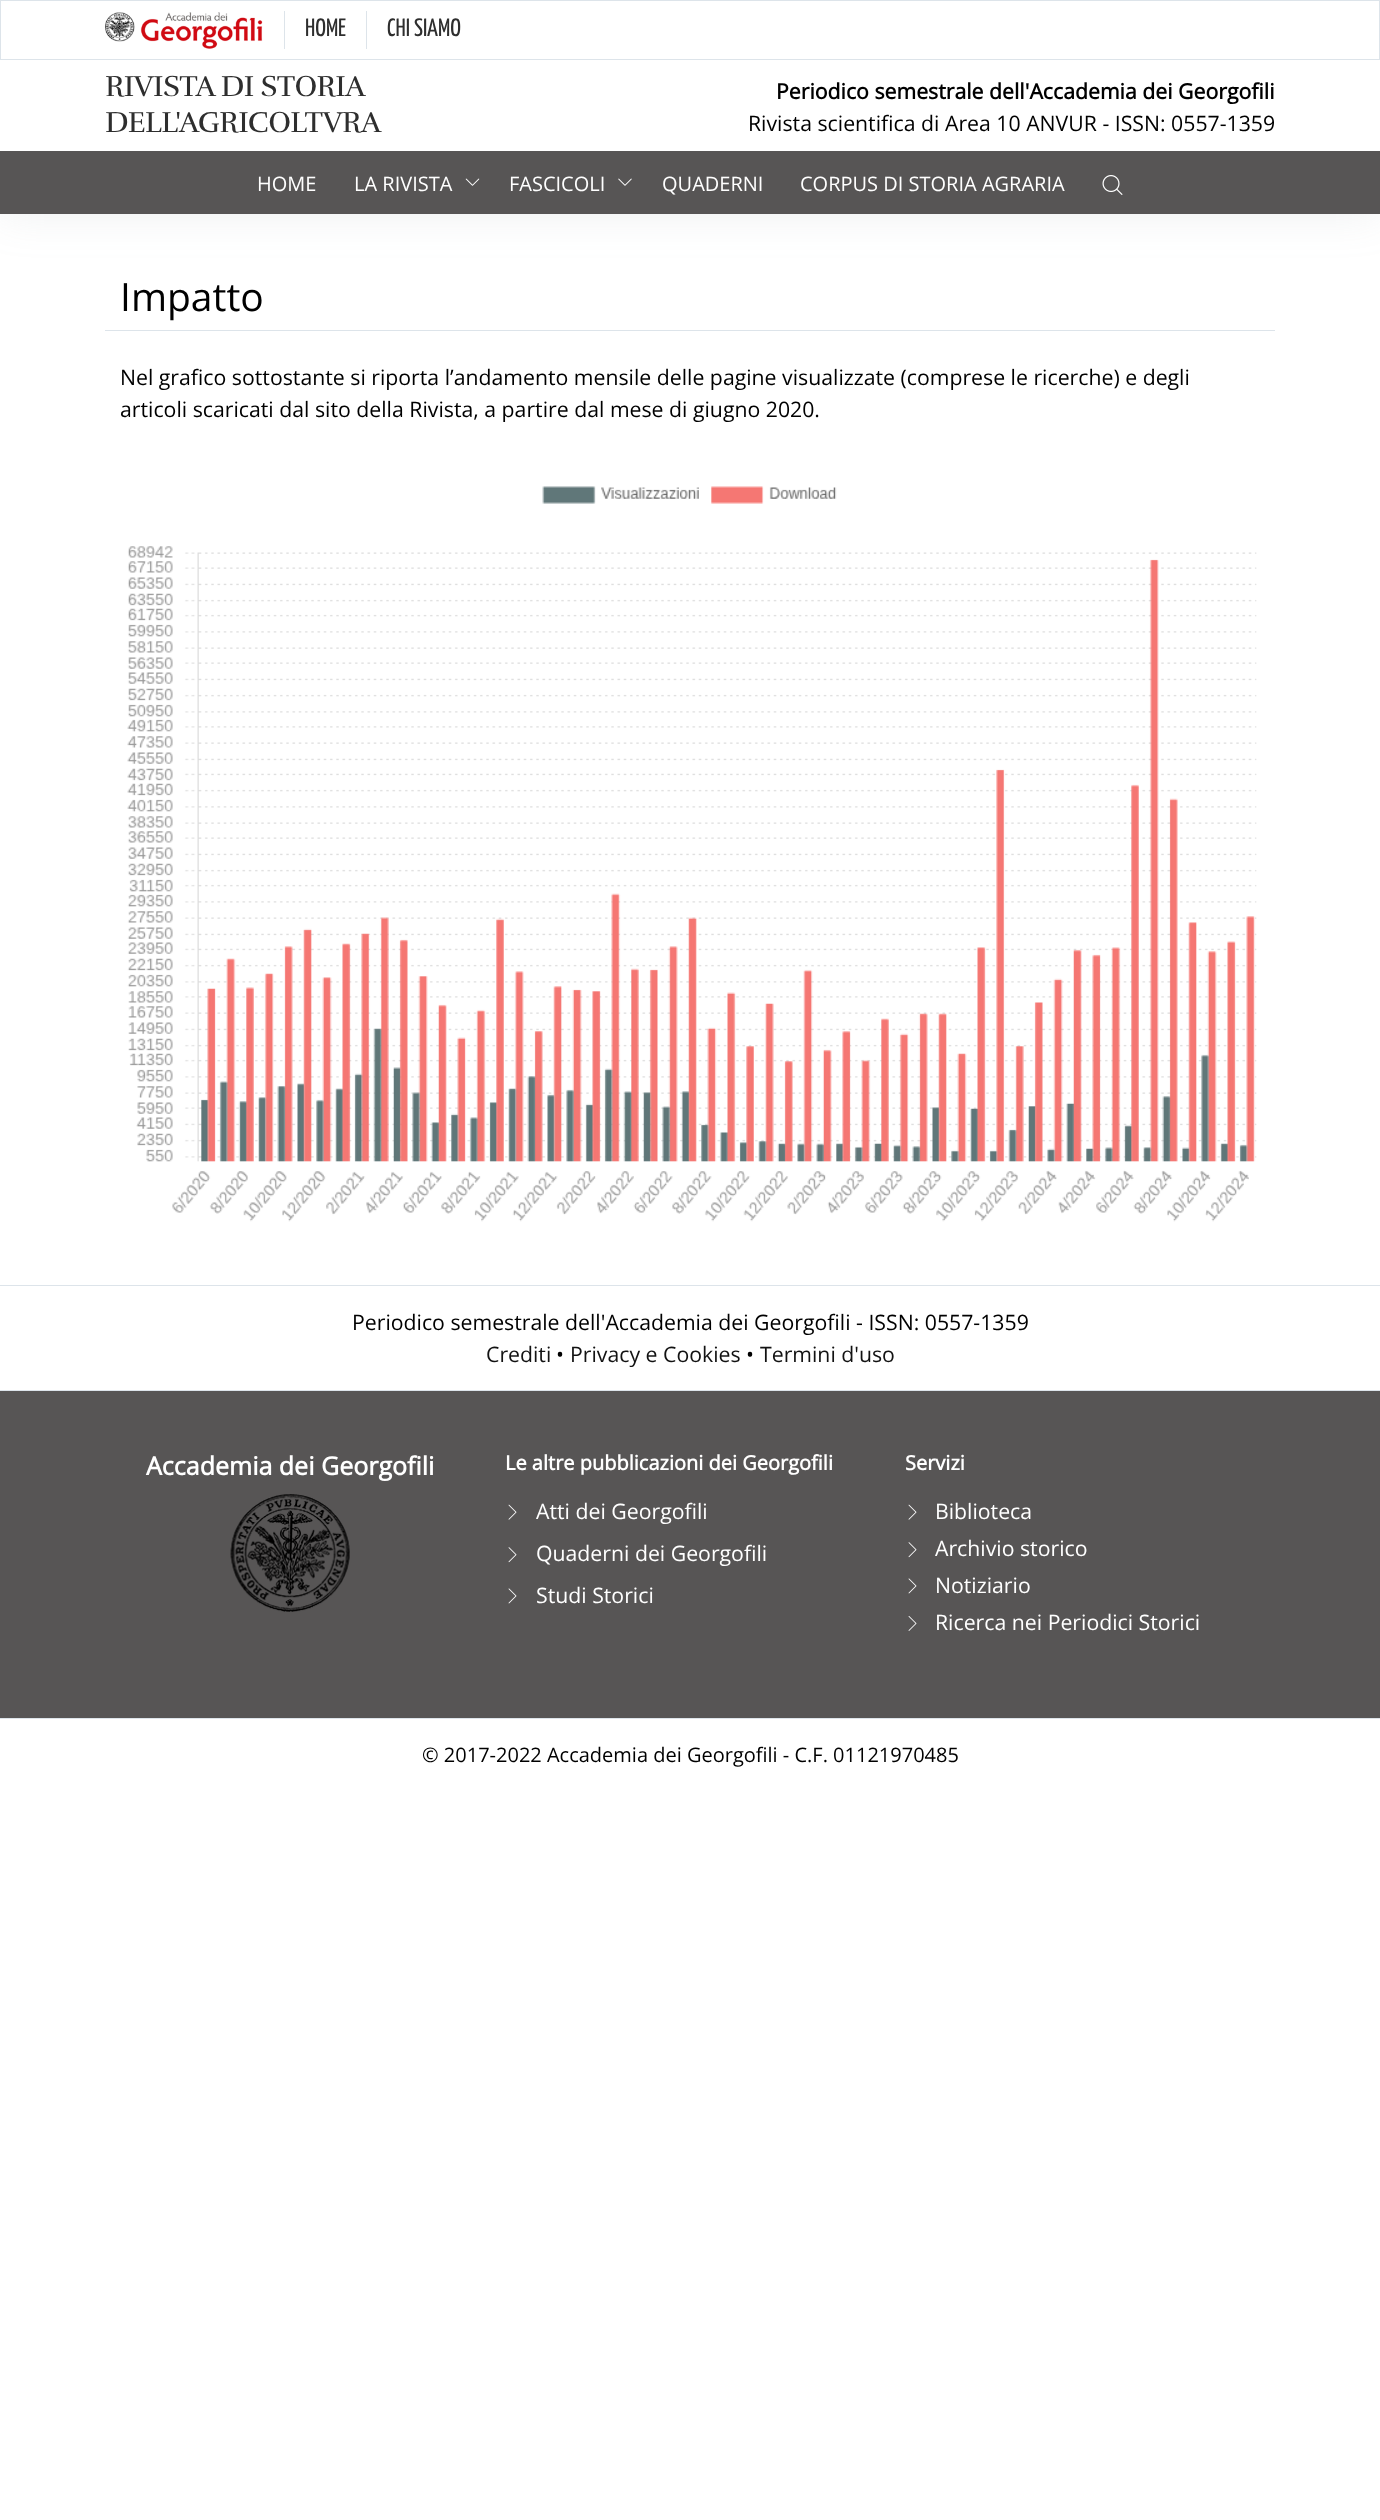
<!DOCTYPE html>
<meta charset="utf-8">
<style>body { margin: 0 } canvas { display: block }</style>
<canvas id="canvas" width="1380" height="2520"></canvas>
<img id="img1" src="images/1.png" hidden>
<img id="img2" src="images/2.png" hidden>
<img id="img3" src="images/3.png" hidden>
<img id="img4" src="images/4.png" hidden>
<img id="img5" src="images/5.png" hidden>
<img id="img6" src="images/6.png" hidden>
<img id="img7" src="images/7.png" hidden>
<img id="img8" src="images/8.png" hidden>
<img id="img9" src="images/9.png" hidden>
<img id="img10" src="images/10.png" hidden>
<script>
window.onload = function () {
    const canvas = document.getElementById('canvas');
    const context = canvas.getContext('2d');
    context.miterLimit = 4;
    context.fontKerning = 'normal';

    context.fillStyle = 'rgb(255, 255, 255)';
    context.fillRect(0, 0, 1380, 2520);
    context.fillStyle = 'rgba(140, 152, 164, 0.15)';
    context.filter = 'blur(22px)';
    context.beginPath();
    context.rect(0, 0, 1380, 214);
    context.fill();
    context.filter = 'none';
    context.fillStyle = 'rgb(255, 255, 255)';
    context.fillRect(0, 1, 1380, 150);
    context.strokeStyle = 'rgb(221, 228, 234)';
    context.strokeRect(0.5, 0.5, 1379, 59);
    context.fillStyle = 'rgb(221, 228, 234)';
    context.fillRect(284, 11, 1, 38);
    context.drawImage(document.getElementById('img1'), 105, 12, 158, 37);
    context.fillRect(366, 11, 1, 38);
    context.fillStyle = 'rgb(87, 85, 85)';
    context.fillRect(0, 151, 1380, 63);
    context.drawImage(document.getElementById('img2'), 465, 178, 15, 8);
    context.drawImage(document.getElementById('img3'), 618, 178, 14, 8);
    context.drawImage(document.getElementById('img4'), 1102, 175, 21, 20);
    context.fillStyle = 'rgb(221, 228, 234)';
    context.fillRect(105, 330, 1170, 1);
    context.drawImage(document.getElementById('img5'), 127, 486, 1130, 736);
    context.fillRect(0, 1285, 1380, 1);
    context.fillStyle = 'rgb(87, 85, 85)';
    context.fillRect(0, 1391, 1380, 327);
    context.fillStyle = 'rgb(221, 228, 234)';
    context.fillRect(0, 1390, 1380, 1);
    context.drawImage(document.getElementById('img6'), 230, 1494, 120, 118);
    context.drawImage(document.getElementById('img7'), 508, 1504, 9, 16);
    context.drawImage(document.getElementById('img8'), 508, 1547, 9, 16);
    context.drawImage(document.getElementById('img9'), 508, 1588, 9, 16);
    context.drawImage(document.getElementById('img7'), 908, 1504, 9, 16);
    context.drawImage(document.getElementById('img8'), 908, 1542, 9, 16);
    context.drawImage(document.getElementById('img9'), 908, 1578, 9, 16);
    context.drawImage(document.getElementById('img10'), 908, 1616, 9, 15);
    context.fillRect(0, 1718, 1380, 1);
    context.font = '200 25px Yanone Kaffeesatz';
    context.fillStyle = 'rgb(46, 46, 46)';
    context.fillText('HOME', 305, 36);
    context.fillText('CHI SIAMO', 387, 36);
    context.letterSpacing = '-0.6px';
    context.font = '29.6px Rufina';
    context.fillText('RIVISTA DI STORIA', 105, 96);
    context.fillText('DELL\'AGRICOLTVRA', 105, 132);
    context.letterSpacing = '0px';
    context.font = 'bold 21.25px Open Sans';
    context.fillStyle = 'rgb(0, 0, 0)';
    context.fillText('Periodico semestrale dell\'Accademia dei Georgofili', 776, 99);
    context.font = '21.25px Open Sans';
    context.fillText('Rivista scientifica di Area 10 ANVUR - ISSN: 0557-1359', 748, 131);
    context.font = '20px Open Sans';
    context.fillStyle = 'rgb(255, 255, 255)';
    context.fillText('HOME', 257, 191);
    context.fillText('LA RIVISTA', 354, 191);
    context.fillText('FASCICOLI', 509, 191);
    context.fillText('QUADERNI', 662, 191);
    context.fillText('CORPUS DI STORIA AGRARIA', 800, 191);
    context.font = '39px Open Sans';
    context.fillStyle = 'rgb(0, 0, 0)';
    context.fillText('Impatto', 120, 311);
    context.font = '21.25px Open Sans';
    context.fillText('Nel grafico sottostante si riporta l’andamento mensile delle pagine visualizzate (comprese le ricerche) e degli', 120, 385);
    context.fillText('articoli scaricati dal sito della Rivista, a partire dal mese di giugno 2020.', 120, 417);
    context.fillText('Periodico semestrale dell\'Accademia dei Georgofili - ISSN: 0557-1359', 352, 1330);
    context.fillStyle = 'rgb(18, 18, 18)';
    context.fillText('Crediti', 486, 1362);
    context.fillStyle = 'rgb(0, 0, 0)';
    context.fillText('•', 556, 1362);
    context.fillStyle = 'rgb(18, 18, 18)';
    context.fillText('Privacy e Cookies', 570, 1362);
    context.fillStyle = 'rgb(0, 0, 0)';
    context.fillText('•', 746, 1362);
    context.fillStyle = 'rgb(18, 18, 18)';
    context.fillText('Termini d\'uso', 760, 1362);
    context.font = 'bold 25px Open Sans';
    context.fillStyle = 'rgb(255, 255, 255)';
    context.fillText('Accademia dei Georgofili', 146, 1475);
    context.font = 'bold 20px Open Sans';
    context.fillText('Le altre pubblicazioni dei Georgofili', 505, 1470);
    context.font = '21.25px Open Sans';
    context.fillText('Atti dei Georgofili', 536, 1519);
    context.fillText('Quaderni dei Georgofili', 536, 1561);
    context.fillText('Studi Storici', 536, 1603);
    context.font = 'bold 20px Open Sans';
    context.fillText('Servizi', 905, 1470);
    context.font = '21.25px Open Sans';
    context.fillText('Biblioteca', 935, 1519);
    context.fillText('Archivio storico', 935, 1556);
    context.fillText('Notiziario', 935, 1593);
    context.fillText('Ricerca nei Periodici Storici', 935, 1630);
    context.font = '20px Open Sans';
    context.fillStyle = 'rgb(0, 0, 0)';
    context.fillText('© 2017-2022 Accademia dei Georgofili - C.F. 01121970485', 422, 1762);
};
</script>
